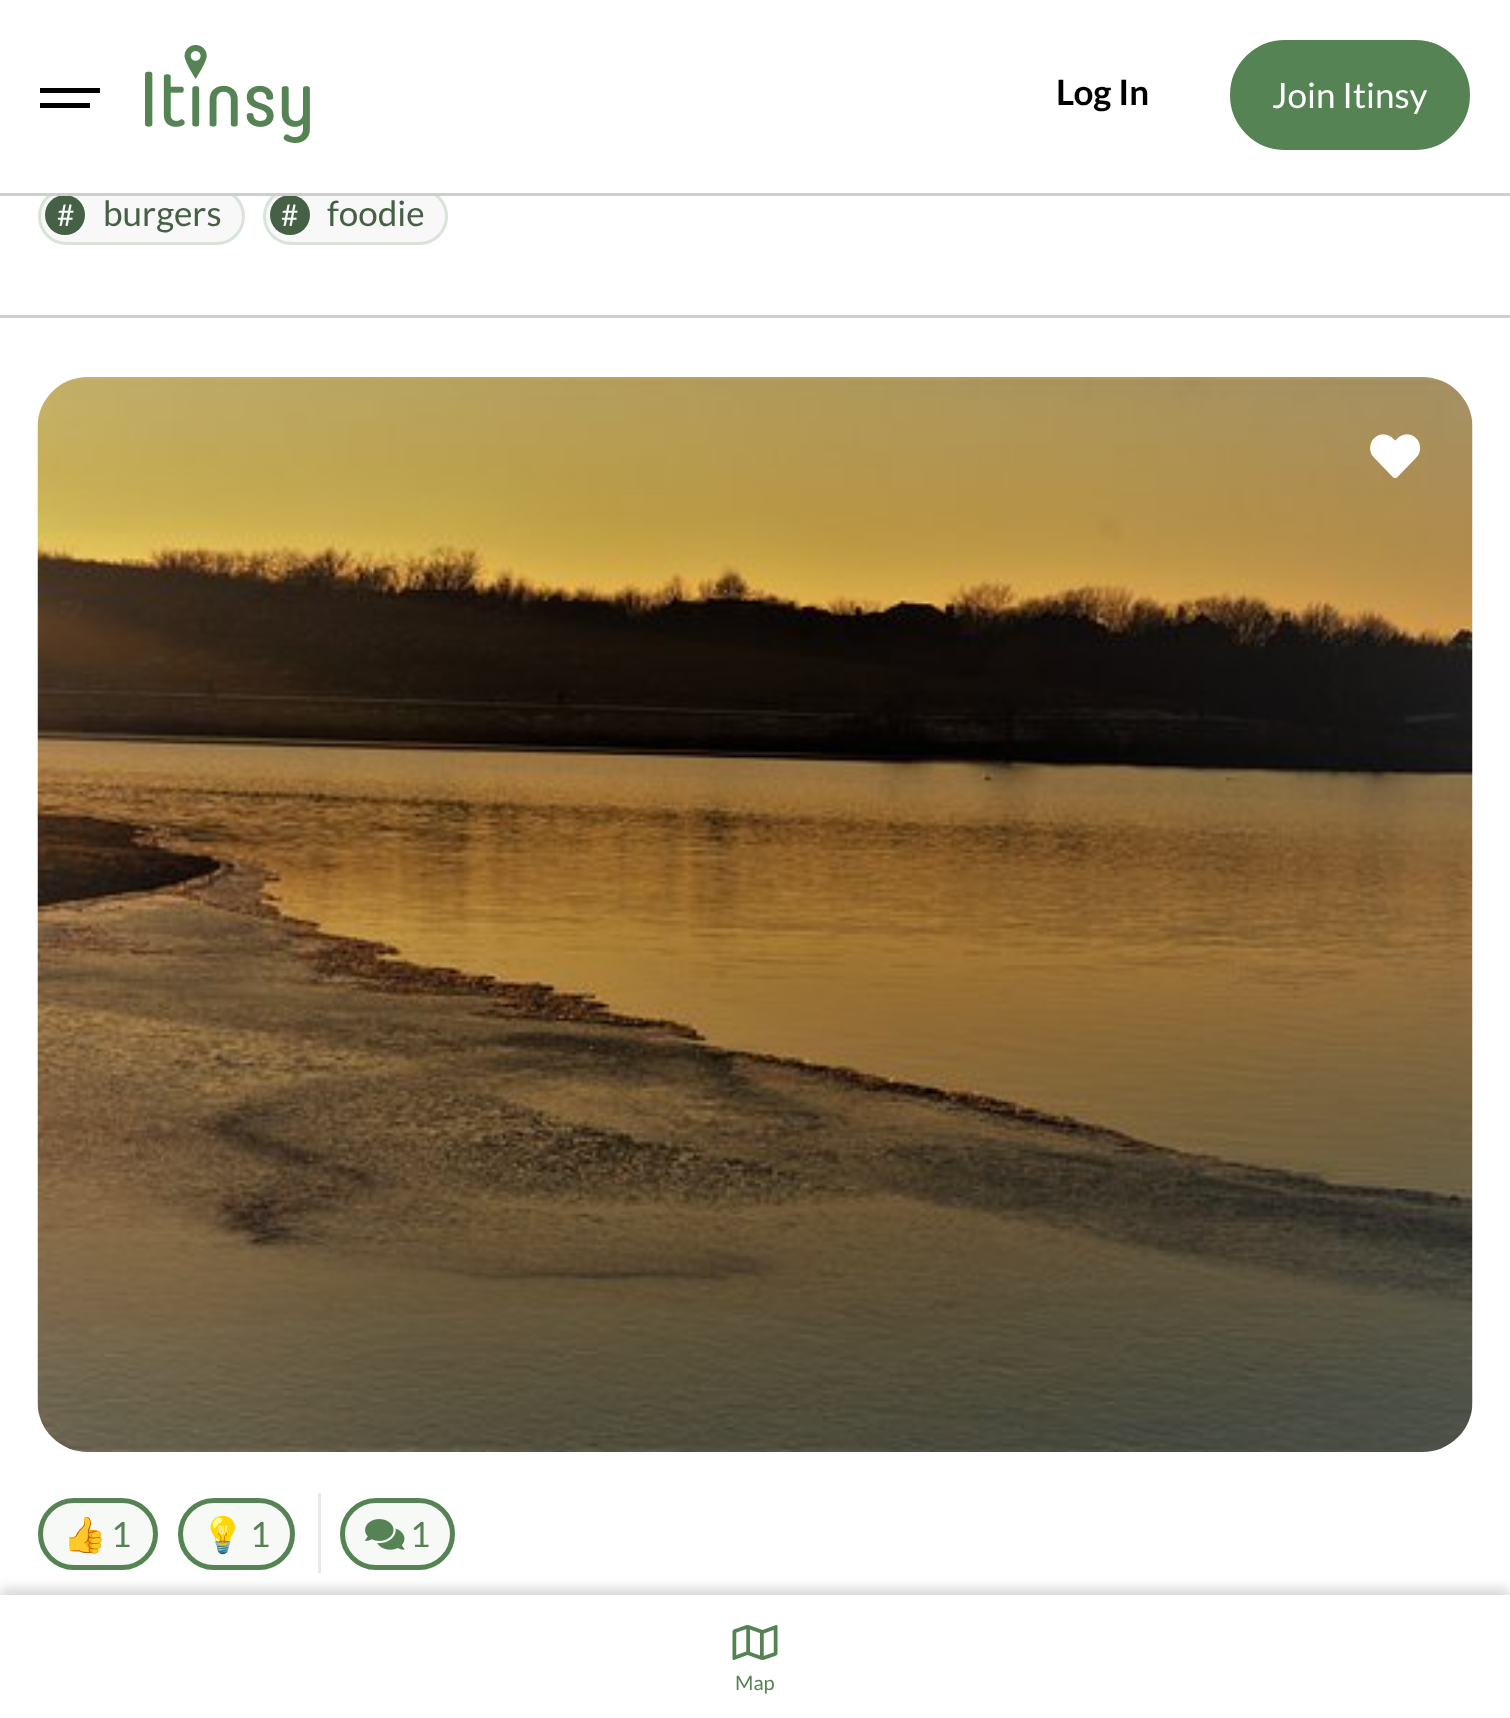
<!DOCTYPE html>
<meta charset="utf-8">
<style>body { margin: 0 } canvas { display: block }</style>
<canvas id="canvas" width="1510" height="1718"></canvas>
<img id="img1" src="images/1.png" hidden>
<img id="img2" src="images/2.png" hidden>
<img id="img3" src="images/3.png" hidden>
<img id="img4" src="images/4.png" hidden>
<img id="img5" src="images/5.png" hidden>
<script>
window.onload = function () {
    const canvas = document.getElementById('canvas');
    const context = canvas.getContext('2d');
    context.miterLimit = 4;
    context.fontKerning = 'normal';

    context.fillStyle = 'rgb(255, 255, 255)';
    context.fillRect(0, 0, 1510, 1718);
    context.fillStyle = 'rgb(248, 248, 248)';
    context.beginPath();
    context.roundRect(39.5, 189.5, 204, 54, 27);
    context.fill();
    context.strokeStyle = 'rgb(217, 228, 217)';
    context.lineWidth = 3;
    context.stroke();
    context.beginPath();
    context.roundRect(264.5, 189.5, 182, 54, 27);
    context.fill();
    context.stroke();
    context.fillStyle = 'rgb(255, 255, 255)';
    context.fillRect(50, 188, 386, 5);
    context.fillStyle = 'rgb(69, 96, 68)';
    context.beginPath();
    context.arc(65, 215, 20, 0, 2 * Math.PI);
    context.fill();
    context.beginPath();
    context.arc(290, 215, 20, 0, 2 * Math.PI);
    context.fill();
    context.fillStyle = 'rgb(206, 206, 206)';
    context.fillRect(0, 193, 1510, 3);
    context.fillStyle = 'rgb(0, 0, 0)';
    context.fillRect(40, 88, 60, 5);
    context.fillRect(40, 103, 50, 5);
    context.drawImage(document.getElementById('img1'), 145, 45, 165, 98);
    context.fillStyle = 'rgb(85, 131, 84)';
    context.beginPath();
    context.roundRect(1231.5, 41.5, 237, 107, 53.5);
    context.fill();
    context.strokeStyle = 'rgb(85, 131, 84)';
    context.stroke();
    context.fillStyle = 'rgb(206, 206, 206)';
    context.fillRect(0, 315, 1510, 3);
    context.drawImage(document.getElementById('img2'), 37, 377, 1436, 1075);
    context.drawImage(document.getElementById('img3'), 1370, 434, 51, 45);
    context.fillStyle = 'rgb(246, 249, 246)';
    context.beginPath();
    context.roundRect(40.5, 1500.5, 115, 67, 33.5);
    context.fill();
    context.lineWidth = 5;
    context.stroke();
    context.beginPath();
    context.roundRect(180.5, 1500.5, 112, 67, 33.5);
    context.fill();
    context.stroke();
    context.fillStyle = 'rgb(233, 233, 233)';
    context.fillRect(318, 1493, 3, 80);
    context.fillStyle = 'rgb(246, 249, 246)';
    context.beginPath();
    context.roundRect(342.5, 1500.5, 110, 67, 33.5);
    context.fill();
    context.stroke();
    context.drawImage(document.getElementById('img4'), 365, 1519, 40, 31);
    context.fillStyle = 'rgba(0, 0, 0, 0.15)';
    context.filter = 'blur(6px)';
    context.beginPath();
    context.rect(0, 1588, 1510, 125);
    context.fill();
    context.filter = 'none';
    context.fillStyle = 'rgb(255, 255, 255)';
    context.fillRect(0, 1595, 1510, 123);
    context.drawImage(document.getElementById('img5'), 732, 1625, 46, 35);
    context.font = 'bold 35px Lato';
    context.fillStyle = 'rgb(0, 0, 0)';
    context.fillText('Log In', 1056, 105);
    context.font = '35px Lato';
    context.fillStyle = 'rgb(255, 255, 255)';
    context.fillText('Join Itinsy', 1272, 108);
    context.font = '30px Lato';
    context.fillStyle = 'rgb(248, 248, 248)';
    context.fillText('#', 57, 226);
    context.font = '35px Lato';
    context.fillStyle = 'rgb(69, 96, 68)';
    context.fillText('burgers', 103, 226);
    context.font = '30px Lato';
    context.fillStyle = 'rgb(248, 248, 248)';
    context.fillText('#', 281, 226);
    context.font = '35px Lato';
    context.fillStyle = 'rgb(69, 96, 68)';
    context.fillText('foodie', 327, 226);
    context.font = '35px Noto Color Emoji';
    context.fillStyle = 'rgb(33, 33, 33)';
    context.fillText('👍', 63, 1547);
    context.font = '35px Lato';
    context.fillStyle = 'rgb(85, 131, 84)';
    context.fillText('1', 111, 1547);
    context.font = '35px Noto Color Emoji';
    context.fillStyle = 'rgb(33, 33, 33)';
    context.fillText('💡', 201, 1547);
    context.font = '35px Lato';
    context.fillStyle = 'rgb(85, 131, 84)';
    context.fillText('1', 250, 1547);
    context.fillText('1', 410, 1547);
    context.font = '20px Lato';
    context.fillText('Map', 735, 1690);
};
</script>
